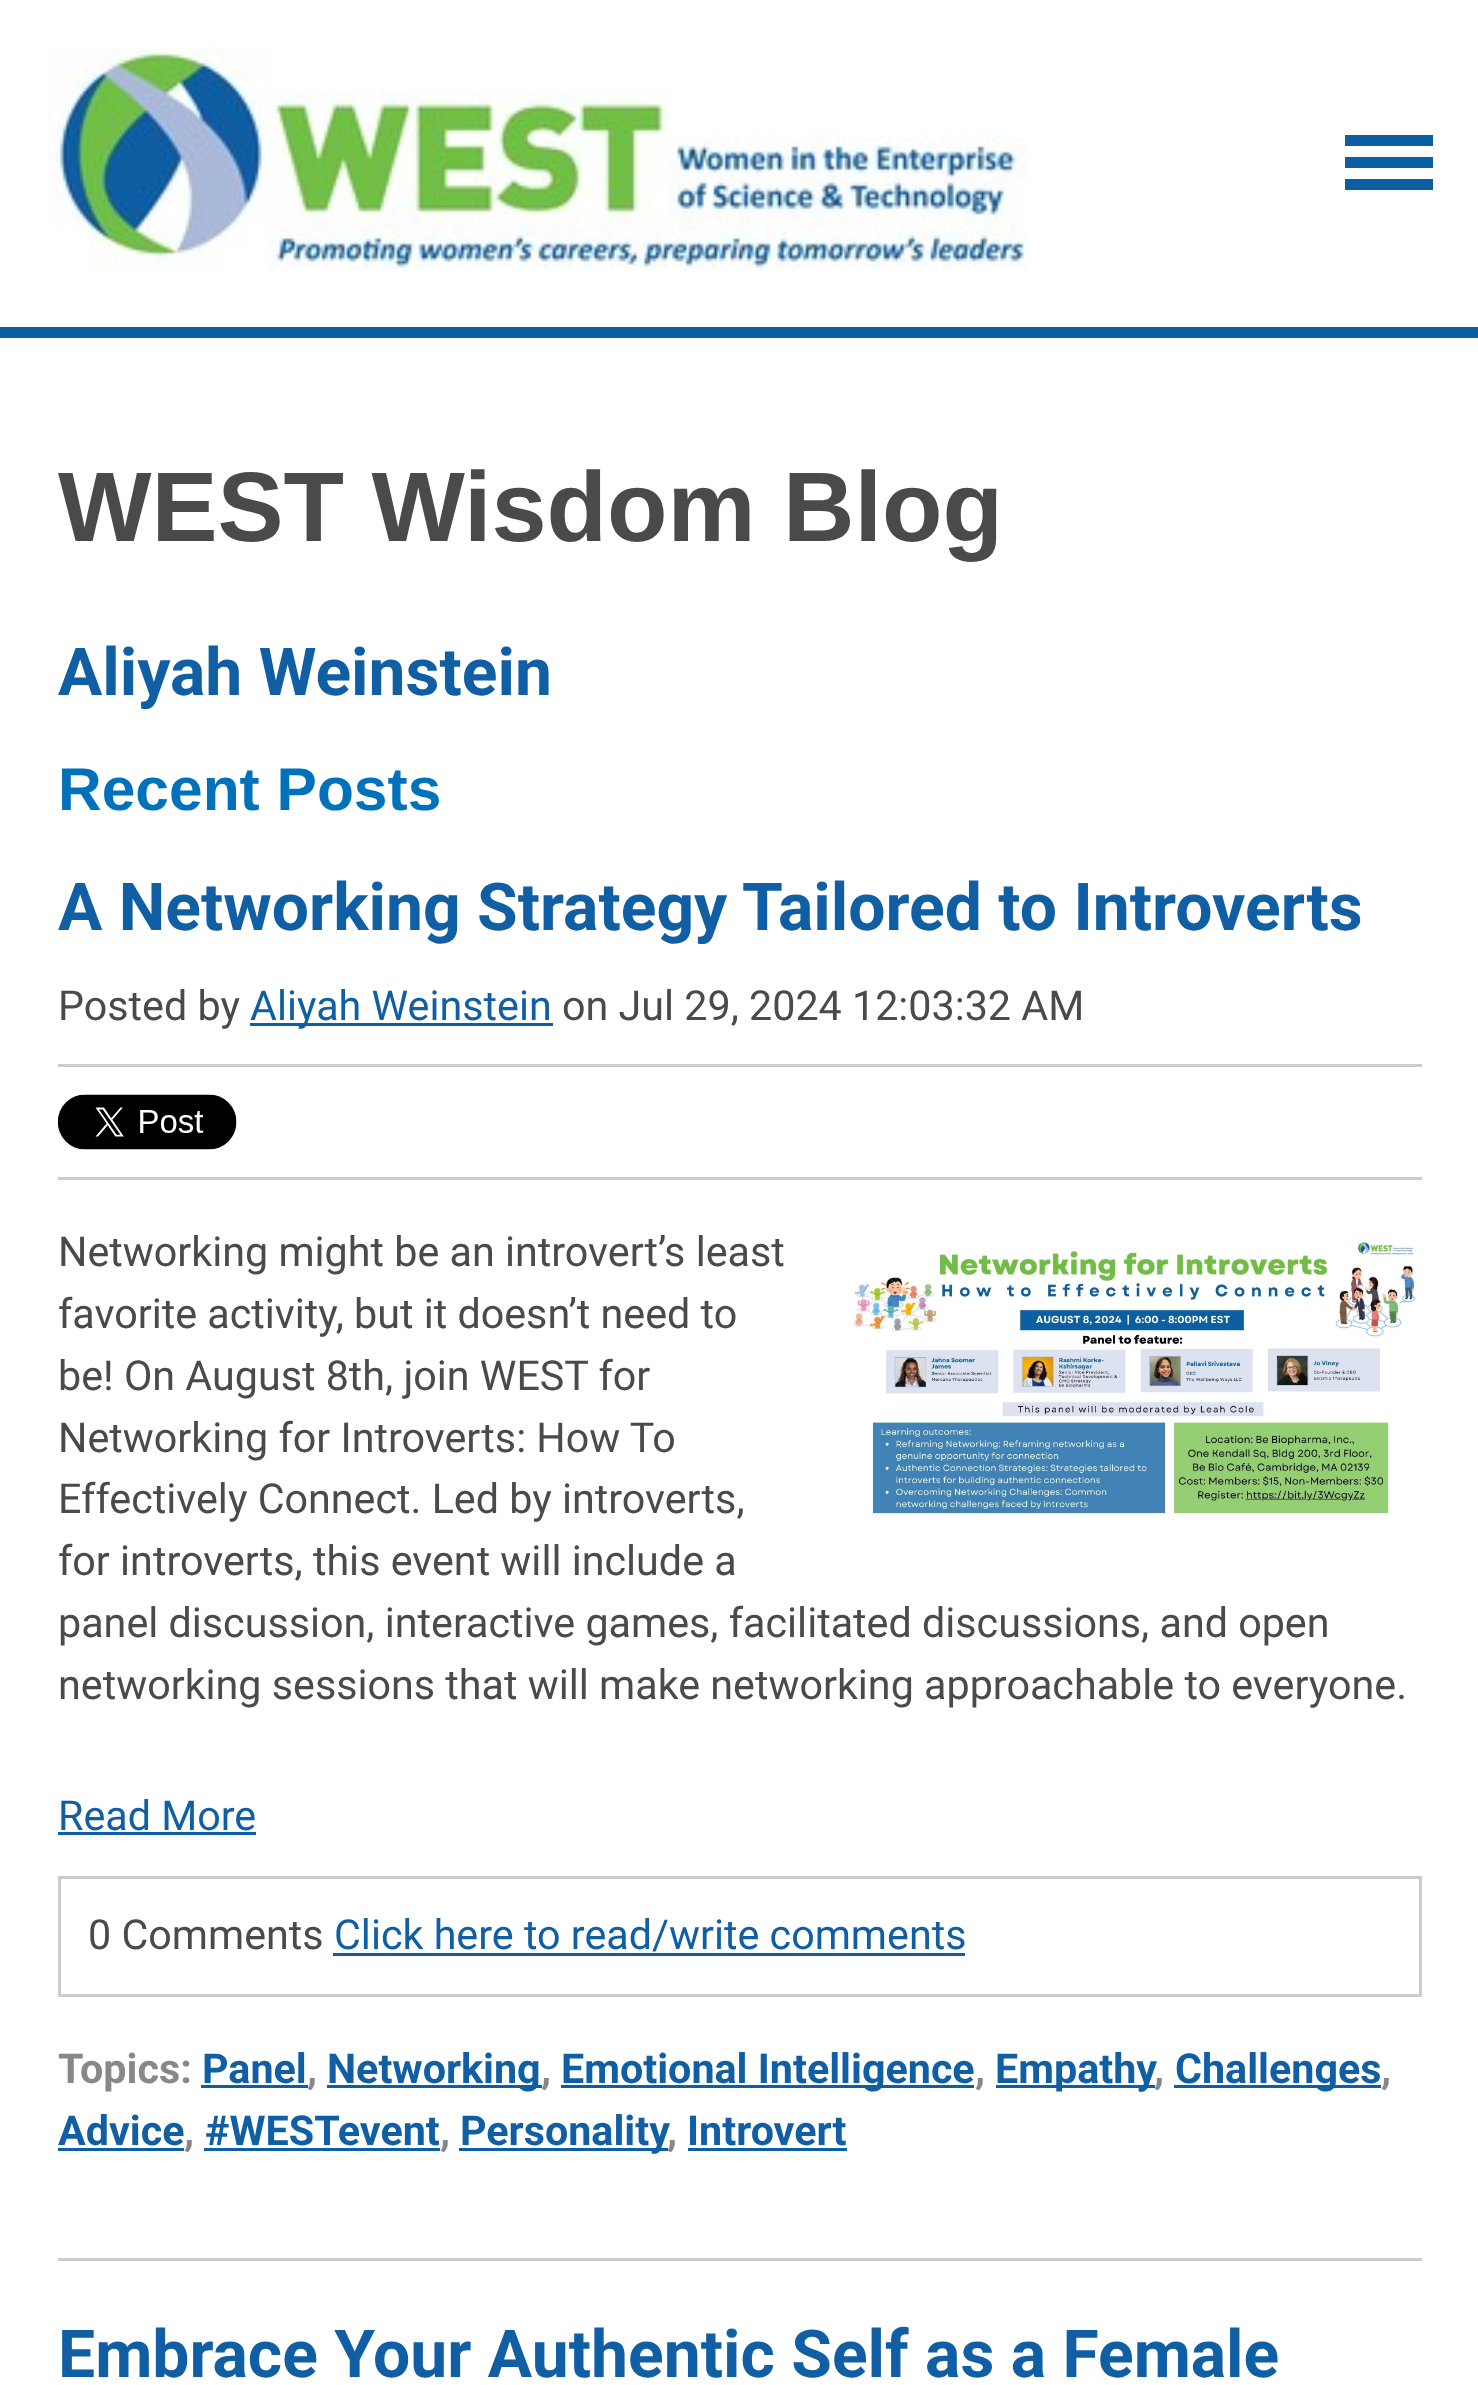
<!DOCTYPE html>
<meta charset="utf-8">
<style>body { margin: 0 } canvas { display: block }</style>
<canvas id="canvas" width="1478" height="2385"></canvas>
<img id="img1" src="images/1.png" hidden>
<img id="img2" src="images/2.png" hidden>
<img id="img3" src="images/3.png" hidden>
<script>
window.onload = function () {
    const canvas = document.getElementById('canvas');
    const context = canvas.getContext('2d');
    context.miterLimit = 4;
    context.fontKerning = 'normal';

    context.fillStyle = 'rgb(255, 255, 255)';
    context.fillRect(0, 0, 1478, 2385);
    context.fillStyle = 'rgb(13, 95, 164)';
    context.fillRect(0, 327, 1478, 11);
    context.drawImage(document.getElementById('img1'), 47, 47, 981, 224);
    context.beginPath();
    context.moveTo(1345, 135);
    context.lineTo(1433, 135);
    context.lineTo(1433, 146);
    context.lineTo(1345, 146);
    context.closePath();
    context.moveTo(1345, 157);
    context.lineTo(1433, 157);
    context.lineTo(1433, 168);
    context.lineTo(1345, 168);
    context.closePath();
    context.moveTo(1345, 179);
    context.lineTo(1433, 179);
    context.lineTo(1433, 190);
    context.lineTo(1345, 190);
    context.closePath();
    context.fill();
    context.fillStyle = 'rgb(204, 204, 204)';
    context.fillRect(58, 2258, 1364, 3);
    context.fillStyle = 'rgb(13, 95, 164)';
    context.fillRect(250, 1023, 303, 3);
    context.fillStyle = 'rgb(204, 204, 204)';
    context.fillRect(58, 1064, 1364, 3);
    context.fillRect(58, 1177, 1364, 3);
    context.drawImage(document.getElementById('img2'), 57, 1094, 180, 56);
    context.drawImage(document.getElementById('img3'), 853, 1239, 564, 278);
    context.fillStyle = 'rgb(13, 95, 164)';
    context.fillRect(58, 1832, 198, 3);
    context.strokeStyle = 'rgb(204, 204, 204)';
    context.lineWidth = 3;
    context.strokeRect(59.5, 1877.5, 1361, 118);
    context.fillRect(333, 1953, 632, 3);
    context.fillRect(201, 2085, 107, 3);
    context.fillRect(327, 2085, 215, 3);
    context.fillRect(561, 2085, 413, 3);
    context.fillRect(996, 2085, 159, 3);
    context.fillRect(1174, 2085, 207, 3);
    context.fillRect(58, 2148, 126, 3);
    context.fillRect(204, 2148, 236, 3);
    context.fillRect(459, 2148, 209, 3);
    context.fillRect(688, 2148, 159, 3);
    context.font = 'bold 99px Liberation Sans';
    context.fillStyle = 'rgb(74, 74, 74)';
    context.fillText('WEST Wisdom Blog', 58, 541);
    context.font = 'bold 66px Roboto';
    context.fillStyle = 'rgb(16, 95, 164)';
    context.fillText('Aliyah Weinstein', 58, 695);
    context.font = 'bold 60.5px Liberation Sans';
    context.fillStyle = 'rgb(0, 114, 188)';
    context.fillText('Recent Posts', 58, 810);
    context.font = 'bold 66px Roboto';
    context.fillStyle = 'rgb(16, 95, 164)';
    context.fillText('A Networking Strategy Tailored to Introverts', 58, 930);
    context.font = '41.25px Roboto';
    context.fillStyle = 'rgb(74, 74, 74)';
    context.fillText('Posted by', 58, 1020);
    context.fillStyle = 'rgb(16, 95, 164)';
    context.fillText('Aliyah Weinstein', 250, 1020);
    context.fillStyle = 'rgb(74, 74, 74)';
    context.fillText('on Jul 29, 2024 12:03:32 AM', 562, 1020);
    context.fillText('Networking might be an introvert’s least', 58, 1266);
    context.fillText('favorite activity, but it doesn’t need to', 58, 1328);
    context.fillText('be! On August 8th, join WEST for', 58, 1390);
    context.fillText('Networking for Introverts: How To', 58, 1452);
    context.fillText('Effectively Connect. Led by introverts,', 58, 1513);
    context.fillText('for introverts, this event will include a', 58, 1575);
    context.fillText('panel discussion, interactive games, facilitated discussions, and open', 58, 1637);
    context.fillText('networking sessions that will make networking approachable to everyone.', 58, 1699);
    context.fillStyle = 'rgb(16, 95, 164)';
    context.fillText('Read More', 58, 1830);
    context.fillStyle = 'rgb(74, 74, 74)';
    context.fillText('0 Comments', 88, 1949);
    context.fillStyle = 'rgb(16, 95, 164)';
    context.fillText('Click here to read/write comments', 334, 1949);
    context.font = 'bold 41.25px Roboto';
    context.fillStyle = 'rgb(136, 136, 136)';
    context.fillText('Topics:', 58, 2083);
    context.fillStyle = 'rgb(16, 95, 164)';
    context.fillText('Panel', 202, 2083);
    context.fillStyle = 'rgb(136, 136, 136)';
    context.fillText(',', 307, 2083);
    context.fillStyle = 'rgb(16, 95, 164)';
    context.fillText('Networking', 327, 2083);
    context.fillStyle = 'rgb(136, 136, 136)';
    context.fillText(',', 541, 2083);
    context.fillStyle = 'rgb(16, 95, 164)';
    context.fillText('Emotional Intelligence', 561, 2083);
    context.fillStyle = 'rgb(136, 136, 136)';
    context.fillText(',', 975, 2083);
    context.fillStyle = 'rgb(16, 95, 164)';
    context.fillText('Empathy', 995, 2083);
    context.fillStyle = 'rgb(136, 136, 136)';
    context.fillText(',', 1154, 2083);
    context.fillStyle = 'rgb(16, 95, 164)';
    context.fillText('Challenges', 1175, 2083);
    context.fillStyle = 'rgb(136, 136, 136)';
    context.fillText(',', 1381, 2083);
    context.fillStyle = 'rgb(16, 95, 164)';
    context.fillText('Advice', 58, 2145);
    context.fillStyle = 'rgb(136, 136, 136)';
    context.fillText(',', 184, 2145);
    context.fillStyle = 'rgb(16, 95, 164)';
    context.fillText('#WESTevent', 205, 2145);
    context.fillStyle = 'rgb(136, 136, 136)';
    context.fillText(',', 440, 2145);
    context.fillStyle = 'rgb(16, 95, 164)';
    context.fillText('Personality', 460, 2145);
    context.fillStyle = 'rgb(136, 136, 136)';
    context.fillText(',', 667, 2145);
    context.fillStyle = 'rgb(16, 95, 164)';
    context.fillText('Introvert', 687, 2145);
    context.font = 'bold 66px Roboto';
    context.fillText('Embrace Your Authentic Self as a Female', 58, 2377);
};
</script>
